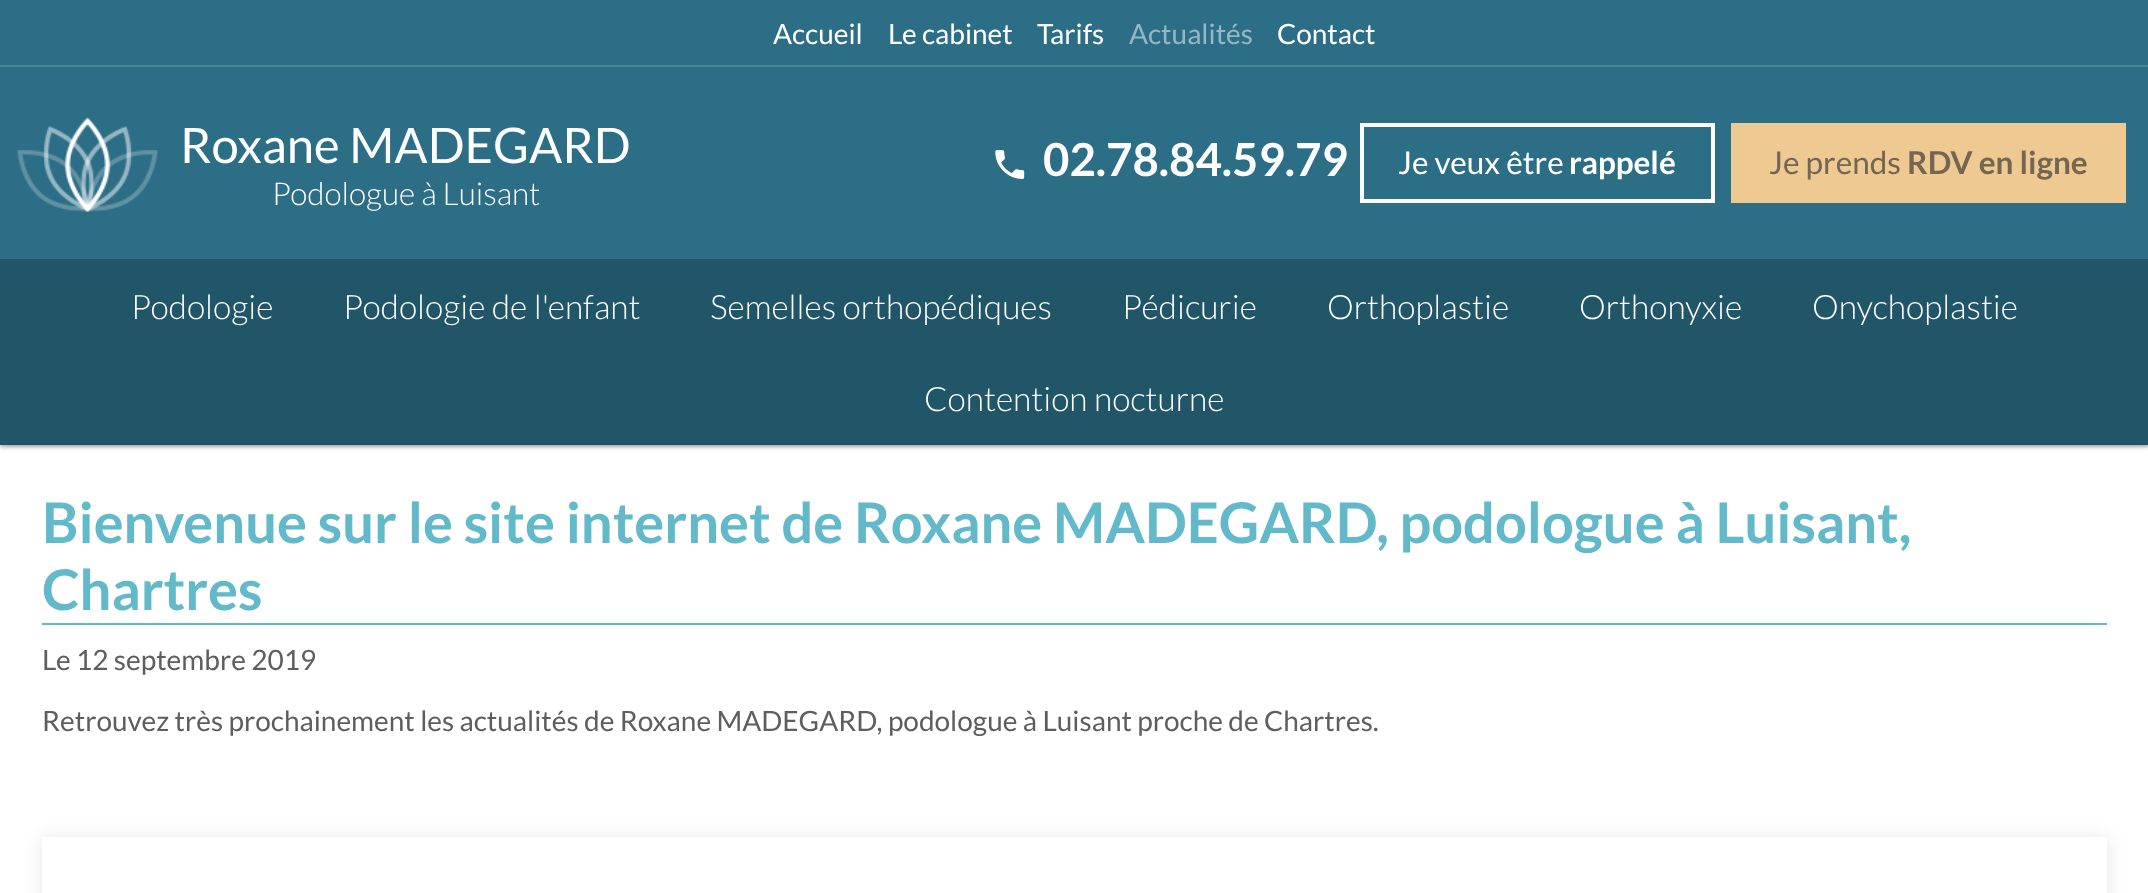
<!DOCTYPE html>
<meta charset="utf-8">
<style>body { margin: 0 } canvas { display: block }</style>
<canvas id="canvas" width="2148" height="893"></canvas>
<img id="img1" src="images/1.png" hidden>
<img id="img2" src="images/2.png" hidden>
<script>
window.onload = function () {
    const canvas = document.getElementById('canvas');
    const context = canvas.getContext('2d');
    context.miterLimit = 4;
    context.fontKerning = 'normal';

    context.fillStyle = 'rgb(255, 255, 255)';
    context.fillRect(0, 0, 2148, 893);
    context.fillStyle = 'rgba(0, 0, 0, 0.5)';
    context.filter = 'blur(2.5px)';
    context.beginPath();
    context.rect(0, 2, 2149, 444);
    context.fill();
    context.filter = 'none';
    context.fillStyle = 'rgb(44, 110, 134)';
    context.fillRect(0, 0, 2148, 259);
    context.fillStyle = 'rgb(76, 132, 152)';
    context.fillRect(0, 65, 2148, 2);
    context.drawImage(document.getElementById('img1'), 17, 117, 141, 95);
    context.drawImage(document.getElementById('img2'), 995, 150, 30, 29);
    context.strokeStyle = 'rgb(255, 255, 255)';
    context.lineWidth = 4;
    context.strokeRect(1362, 125, 351, 76);
    context.fillStyle = 'rgb(238, 201, 146)';
    context.fillRect(1731, 123, 395, 80);
    context.fillStyle = 'rgb(33, 86, 105)';
    context.fillRect(0, 259, 2148, 186);
    context.fillStyle = 'rgb(97, 185, 201)';
    context.fillRect(42, 623, 2065, 2);
    context.save();
    context.beginPath();
    context.moveTo(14, 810);
    context.lineTo(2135, 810);
    context.lineTo(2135, 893);
    context.lineTo(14, 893);
    context.closePath();
    context.moveTo(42, 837);
    context.lineTo(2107, 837);
    context.lineTo(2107, 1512);
    context.lineTo(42, 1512);
    context.closePath();
    context.clip('evenodd');
    context.fillStyle = 'rgba(0, 0, 0, 0.1)';
    context.filter = 'blur(9px)';
    context.beginPath();
    context.rect(42, 838, 2065, 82);
    context.fill();
    context.filter = 'none';
    context.restore();
    context.font = '28px Lato';
    context.fillStyle = 'rgb(255, 255, 255)';
    context.fillText('Accueil', 773, 44);
    context.fillText('Le cabinet', 888, 44);
    context.fillText('Tarifs', 1037, 44);
    context.fillStyle = 'rgb(150, 183, 195)';
    context.fillText('Actualités', 1129, 44);
    context.fillStyle = 'rgb(255, 255, 255)';
    context.fillText('Contact', 1277, 44);
    context.font = '49px Lato';
    context.fillText('Roxane MADEGARD', 180, 163);
    context.font = '300 31.5px Lato';
    context.fillText('Podologue à Luisant', 272, 205);
    context.font = 'bold 45.5px Lato';
    context.fillText('02.78.84.59.79', 1043, 176);
    context.font = '31.5px Lato';
    context.fillText('Je veux être', 1398, 174);
    context.font = 'bold 31.5px Lato';
    context.fillText('rappelé', 1569, 174);
    context.font = '31.5px Lato';
    context.fillStyle = 'rgb(115, 102, 82)';
    context.fillText('Je prends', 1769, 174);
    context.font = 'bold 31.5px Lato';
    context.fillText('RDV en ligne', 1907, 174);
    context.font = '300 33.6px Lato';
    context.fillStyle = 'rgb(255, 255, 255)';
    context.fillText('Podologie', 131, 319);
    context.fillText('Podologie de l\'enfant', 343, 319);
    context.fillText('Semelles orthopédiques', 710, 319);
    context.fillText('Pédicurie', 1122, 319);
    context.fillText('Orthoplastie', 1327, 319);
    context.fillText('Orthonyxie', 1579, 319);
    context.fillText('Onychoplastie', 1812, 319);
    context.fillText('Contention nocturne', 924, 411);
    context.font = 'bold 56px Lato';
    context.fillStyle = 'rgb(97, 185, 201)';
    context.fillText('Bienvenue sur le site internet de Roxane MADEGARD, podologue à Luisant,', 42, 543);
    context.fillText('Chartres', 42, 610);
    context.font = '28px Lato';
    context.fillStyle = 'rgb(94, 94, 94)';
    context.fillText('Le 12 septembre 2019', 42, 670);
    context.fillText('Retrouvez très prochainement les actualités de Roxane MADEGARD, podologue à Luisant proche de Chartres.', 42, 731);
};
</script>
